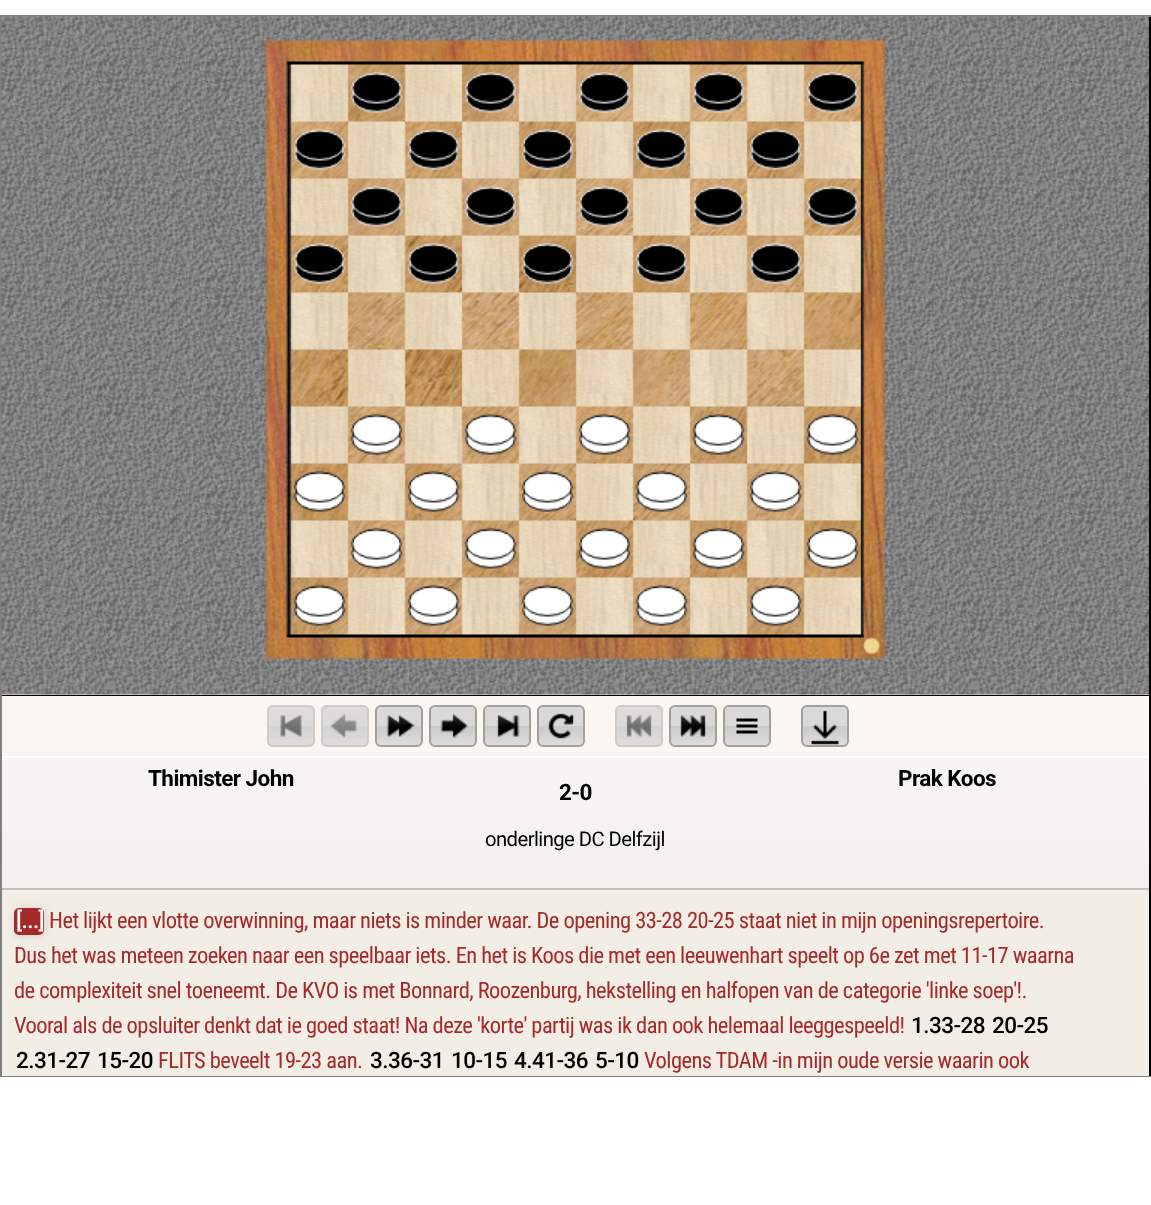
<!DOCTYPE html>
<meta charset="utf-8">
<style>body { margin: 0 } canvas { display: block }</style>
<canvas id="canvas" width="1151" height="1205"></canvas>
<img id="img1" src="images/1.png" hidden>
<img id="img2" src="images/2.png" hidden>
<img id="img3" src="images/3.png" hidden>
<img id="img4" src="images/4.png" hidden>
<img id="img5" src="images/5.png" hidden>
<img id="img6" src="images/6.png" hidden>
<img id="img7" src="images/7.png" hidden>
<img id="img8" src="images/8.png" hidden>
<img id="img9" src="images/9.png" hidden>
<img id="img10" src="images/10.png" hidden>
<img id="img11" src="images/11.png" hidden>
<script>
window.onload = function () {
    const canvas = document.getElementById('canvas');
    const context = canvas.getContext('2d');
    context.miterLimit = 4;
    context.fontKerning = 'normal';
    let gradient;

    context.fillStyle = 'rgb(255, 255, 255)';
    context.fillRect(0, 0, 1151, 1205);
    context.strokeStyle = 'rgb(128, 128, 128)';
    context.lineWidth = 2;
    context.strokeRect(1, 16, 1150, 1060);
    context.fillStyle = 'rgb(0, 0, 0)';
    context.fillRect(1149, 17, 2, 1059);
    context.fillStyle = 'rgb(242, 241, 236)';
    context.fillRect(2, 694, 1147, 1);
    context.fillStyle = 'rgb(0, 0, 0)';
    context.fillRect(2, 695, 1147, 1);
    context.drawImage(document.getElementById('img1'), 1, 16, 1148, 679);
    context.fillStyle = 'rgb(250, 247, 243)';
    context.fillRect(2, 696, 1147, 60);
    context.fillStyle = 'rgb(221, 220, 218)';
    context.beginPath();
    context.roundRect(267, 705, 48, 42, 6);
    context.fill();
    context.drawImage(document.getElementById('img2'), 269, 715, 44, 24);
    context.beginPath();
    context.roundRect(268, 706, 46, 40, 5);
    context.strokeStyle = 'rgb(207, 203, 199)';
    context.stroke();
    context.beginPath();
    context.roundRect(321, 705, 48, 42, 6);
    context.fill();
    context.drawImage(document.getElementById('img3'), 323, 713, 44, 26);
    context.beginPath();
    context.roundRect(322, 706, 46, 40, 5);
    context.stroke();
    context.drawImage(document.getElementById('img4'), 376, 706, 46, 40);
    context.beginPath();
    context.roundRect(376, 706, 46, 40, 5);
    context.strokeStyle = 'rgb(163, 159, 155)';
    context.stroke();
    context.drawImage(document.getElementById('img5'), 430, 706, 46, 40);
    context.beginPath();
    context.roundRect(430, 706, 46, 40, 5);
    context.stroke();
    context.drawImage(document.getElementById('img6'), 484, 706, 46, 40);
    context.beginPath();
    context.roundRect(484, 706, 46, 40, 5);
    context.stroke();
    context.drawImage(document.getElementById('img7'), 538, 706, 46, 40);
    context.beginPath();
    context.roundRect(538, 706, 46, 40, 5);
    context.stroke();
    context.beginPath();
    context.roundRect(615, 705, 48, 42, 6);
    context.fill();
    context.drawImage(document.getElementById('img8'), 617, 714, 44, 25);
    context.beginPath();
    context.roundRect(616, 706, 46, 40, 5);
    context.strokeStyle = 'rgb(207, 203, 199)';
    context.stroke();
    context.drawImage(document.getElementById('img9'), 670, 706, 46, 40);
    context.beginPath();
    context.roundRect(670, 706, 46, 40, 5);
    context.strokeStyle = 'rgb(163, 159, 155)';
    context.stroke();
    context.drawImage(document.getElementById('img10'), 724, 706, 46, 40);
    context.beginPath();
    context.roundRect(724, 706, 46, 40, 5);
    context.stroke();
    context.drawImage(document.getElementById('img11'), 802, 706, 46, 40);
    context.beginPath();
    context.roundRect(802, 706, 46, 40, 5);
    context.stroke();
    context.fillStyle = 'rgb(192, 192, 192)';
    context.fillRect(2, 888, 1147, 2);
    gradient = context.createLinearGradient(575, 757, 575, 888);
    gradient.addColorStop(0, 'rgb(247, 246, 244)');
    gradient.addColorStop(1, 'rgb(243, 241, 239)');
    context.fillStyle = gradient;
    context.fillRect(2, 758, 1147, 130);
    context.fillStyle = 'rgb(242, 238, 229)';
    context.fillRect(2, 890, 1147, 186);
    context.fillStyle = 'rgba(0, 0, 0, 0.12)';
    context.filter = 'blur(4px)';
    context.beginPath();
    context.roundRect(15, 909, 30, 27, 5);
    context.fill();
    context.filter = 'none';
    context.fillStyle = 'rgb(165, 42, 42)';
    context.beginPath();
    context.roundRect(14, 908, 30, 27, 5);
    context.fill();
    context.letterSpacing = '-0.56px';
    context.font = 'bold 22.5px Roboto';
    context.fillStyle = 'rgb(0, 0, 0)';
    context.fillText('Thimister John', 148, 786);
    context.fillText('Prak Koos', 898, 786);
    context.fillText('2-0', 559, 800);
    context.font = '20.25px Roboto';
    context.fillText('onderlinge DC Delfzijl', 485, 846);
    context.font = '500 22.5px Roboto';
    context.fillStyle = 'rgb(255, 255, 255)';
    context.fillText('[...]', 16, 928);
    context.font = '22.5px Roboto Condensed';
    context.fillStyle = 'rgb(165, 42, 42)';
    context.fillText('Het lijkt een vlotte overwinning, maar niets is minder waar. De opening 33-28 20-25 staat niet in mijn openingsrepertoire.', 49, 928);
    context.fillText('Dus het was meteen zoeken naar een speelbaar iets. En het is Koos die met een leeuwenhart speelt op 6e zet met 11-17 waarna', 14, 963);
    context.fillText('de complexiteit snel toeneemt. De KVO is met Bonnard, Roozenburg, hekstelling en halfopen van de categorie \'linke soep\'!.', 14, 998);
    context.fillText('Vooral als de opsluiter denkt dat ie goed staat! Na deze \'korte\' partij was ik dan ook helemaal leeggespeeld!', 14, 1033);
    context.font = '500 22.5px Roboto';
    context.fillStyle = 'rgb(0, 0, 0)';
    context.fillText('1.33-28', 911, 1033);
    context.fillText('20-25', 992, 1033);
    context.fillText('2.31-27', 16, 1068);
    context.fillText('15-20', 97, 1068);
    context.font = '22.5px Roboto Condensed';
    context.fillStyle = 'rgb(165, 42, 42)';
    context.fillText('FLITS beveelt 19-23 aan.', 158, 1068);
    context.font = '500 22.5px Roboto';
    context.fillStyle = 'rgb(0, 0, 0)';
    context.fillText('3.36-31', 370, 1068);
    context.fillText('10-15', 451, 1068);
    context.fillText('4.41-36', 514, 1068);
    context.fillText('5-10', 595, 1068);
    context.font = '22.5px Roboto Condensed';
    context.fillStyle = 'rgb(165, 42, 42)';
    context.fillText('Volgens TDAM -in mijn oude versie waarin ook', 644, 1068);
};
</script>
